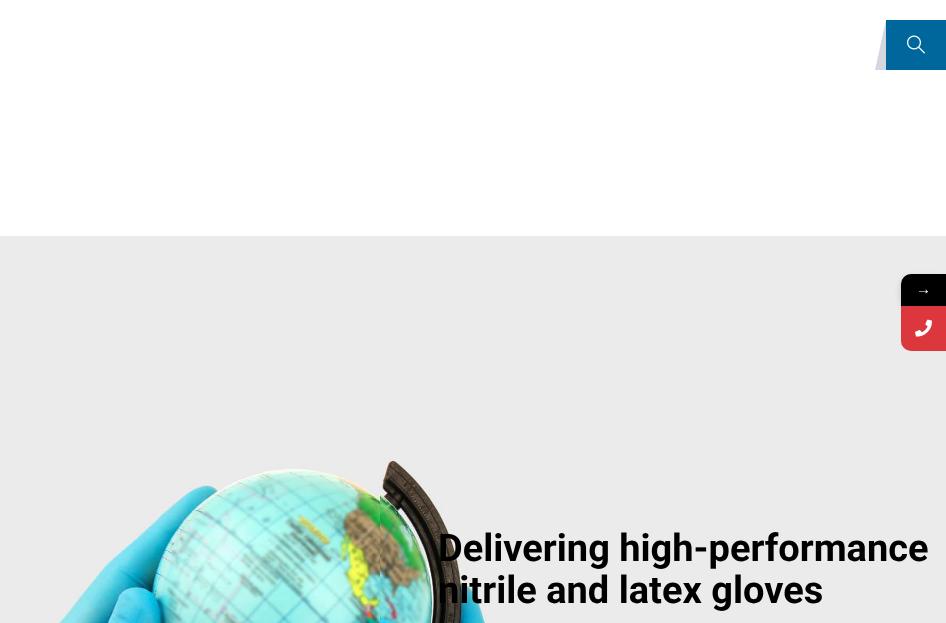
<!DOCTYPE html>
<meta charset="utf-8">
<style>body { margin: 0 } canvas { display: block }</style>
<canvas id="canvas" width="946" height="623"></canvas>
<img id="img1" src="images/1.png" hidden>
<img id="img2" src="images/3.png" hidden>
<img id="img3" src="images/2.png" hidden>
<script>
window.onload = function () {
    const canvas = document.getElementById('canvas');
    const context = canvas.getContext('2d');
    context.miterLimit = 4;
    context.fontKerning = 'normal';

    context.fillStyle = 'rgb(255, 255, 255)';
    context.fillRect(0, 0, 946, 623);
    context.fillStyle = 'rgb(211, 216, 224)';
    context.beginPath();
    context.moveTo(886, 20);
    context.lineTo(898, 20);
    context.lineTo(887, 70);
    context.lineTo(875, 70);
    context.closePath();
    context.fill();
    context.fillStyle = 'rgb(0, 103, 157)';
    context.fillRect(886, 20, 60, 50);
    context.drawImage(document.getElementById('img1'), 907, 35, 18, 19);
    context.drawImage(document.getElementById('img2'), 0, 236, 946, 387);
    context.fillStyle = 'rgba(0, 0, 0, 0.16)';
    context.filter = 'blur(3px)';
    context.beginPath();
    context.roundRect(901, 277, 45, 32, 10);
    context.fill();
    context.filter = 'none';
    context.fillStyle = 'rgb(0, 0, 0)';
    context.beginPath();
    context.roundRect(901, 274, 45, 32, [10, 0, 0, 0]);
    context.fill();
    context.fillStyle = 'rgb(221, 55, 62)';
    context.beginPath();
    context.roundRect(901, 306, 45, 45, [0, 0, 0, 10]);
    context.fill();
    context.drawImage(document.getElementById('img3'), 915, 319, 17, 18);
    context.font = '15px Liberation Serif';
    context.fillStyle = 'rgb(255, 255, 255)';
    context.fillText('→', 916, 294);
    context.font = 'bold 38px Roboto';
    context.fillStyle = 'rgb(0, 0, 0)';
    context.fillText('Delivering high-performance', 438, 561);
    context.fillText('nitrile and latex gloves', 438, 603);
};
</script>
